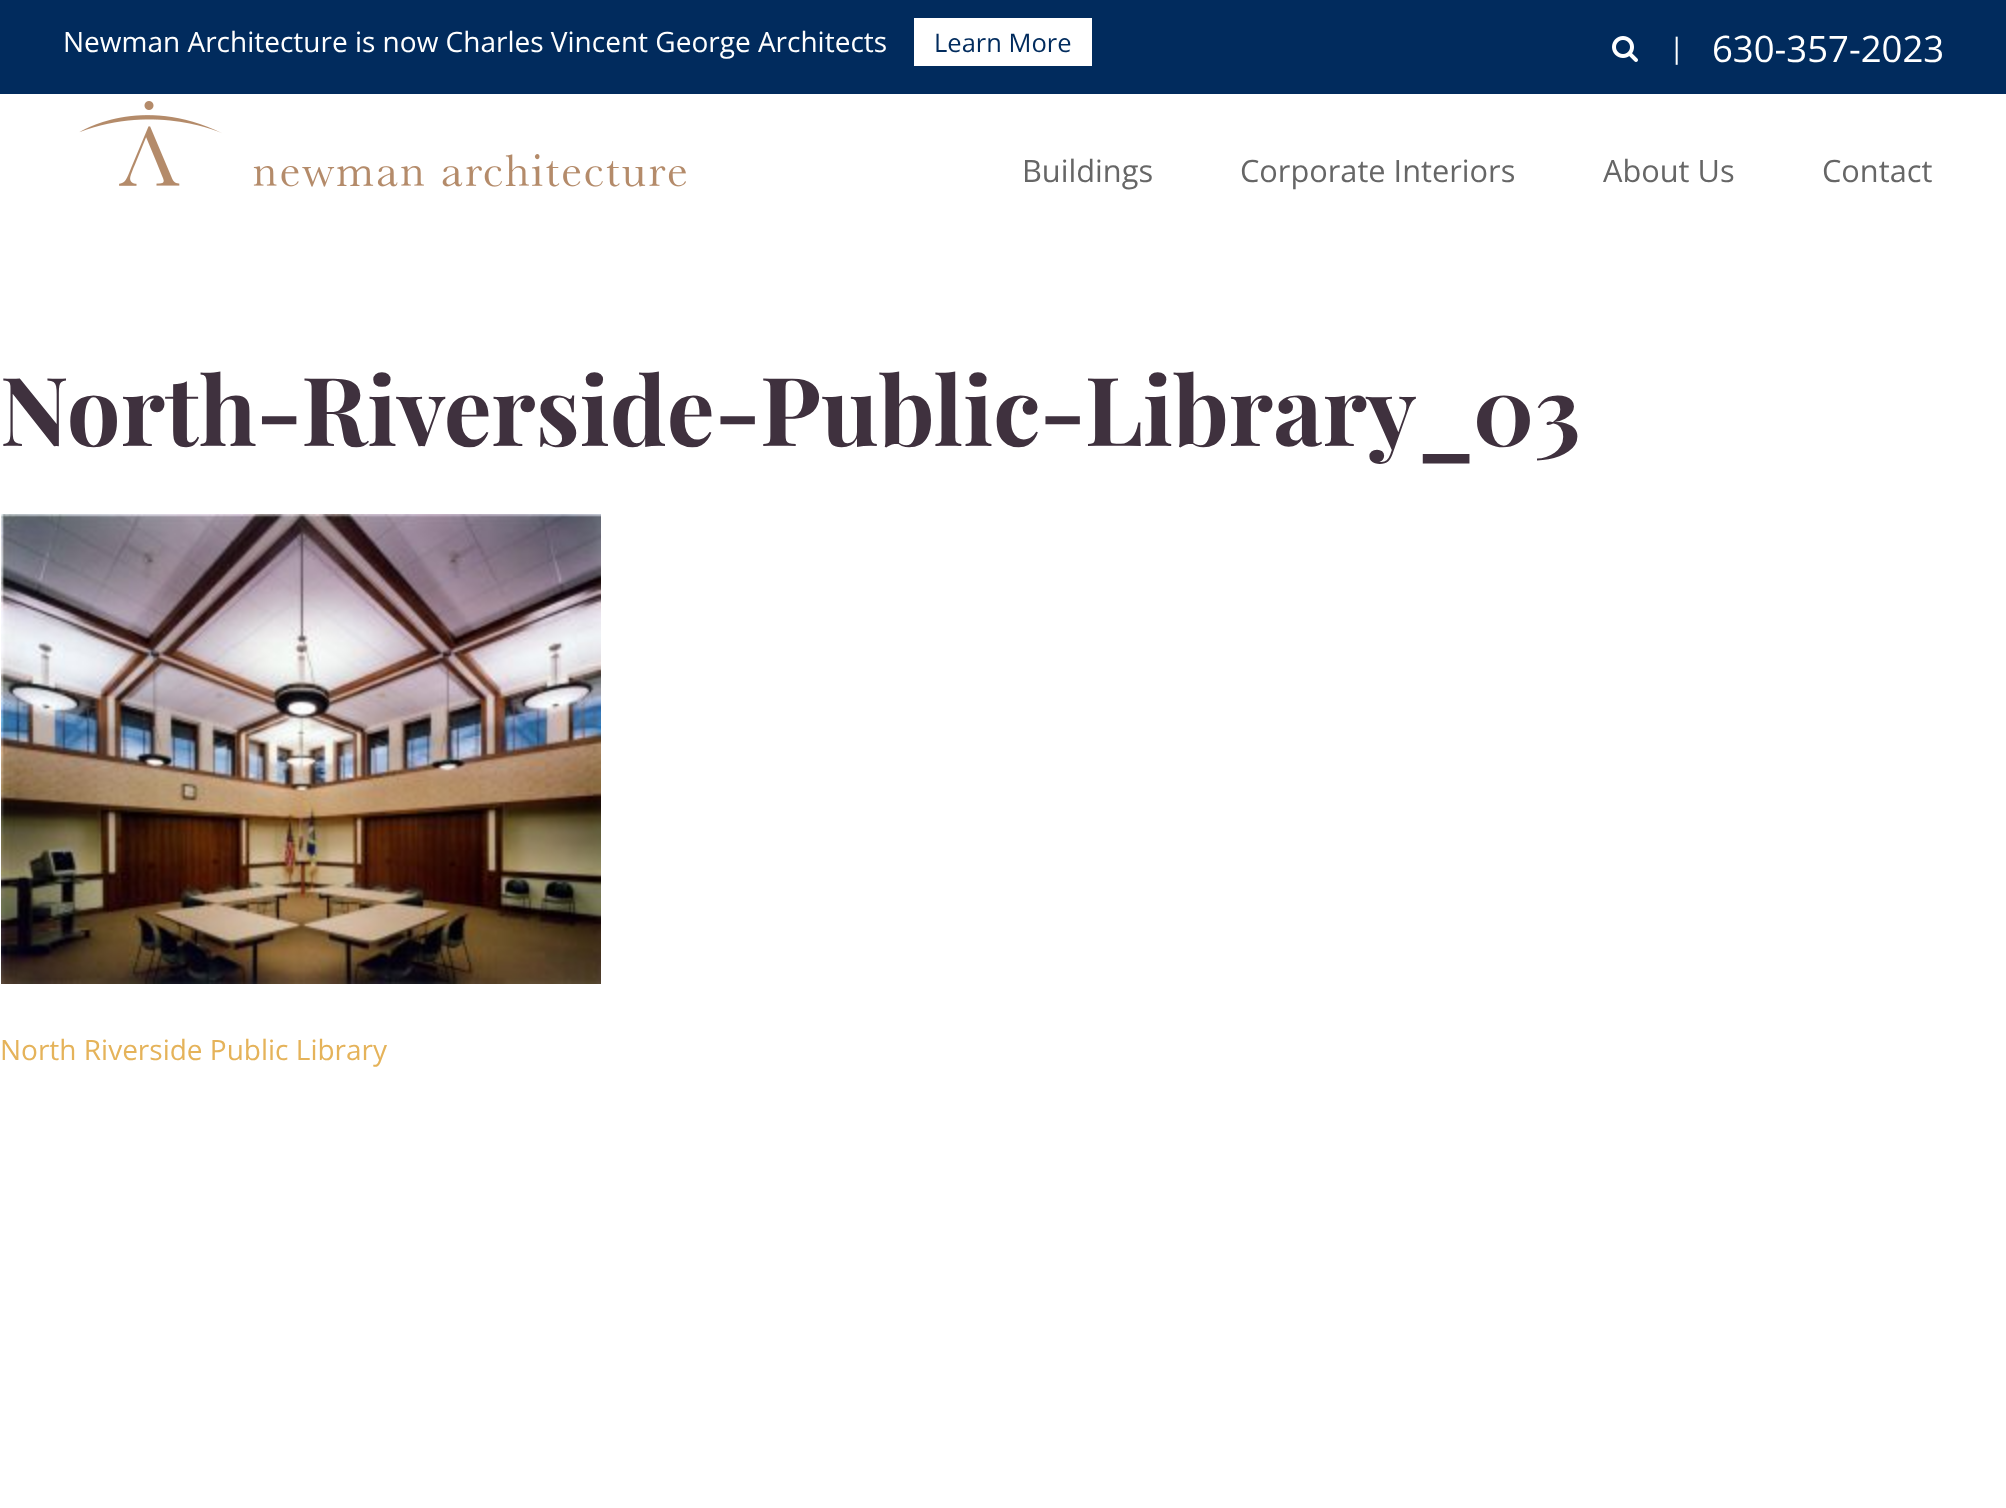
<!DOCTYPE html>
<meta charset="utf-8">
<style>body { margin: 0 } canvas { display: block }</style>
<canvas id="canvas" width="2006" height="1508"></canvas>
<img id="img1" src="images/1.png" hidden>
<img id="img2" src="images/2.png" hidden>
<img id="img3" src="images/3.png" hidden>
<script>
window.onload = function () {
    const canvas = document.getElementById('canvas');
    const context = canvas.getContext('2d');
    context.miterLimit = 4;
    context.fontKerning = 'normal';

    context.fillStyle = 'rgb(255, 255, 255)';
    context.fillRect(0, 0, 2006, 1508);
    context.fillStyle = 'rgb(1, 43, 93)';
    context.fillRect(0, 0, 2006, 94);
    context.fillStyle = 'rgb(255, 255, 255)';
    context.fillRect(914, 18, 178, 48);
    context.drawImage(document.getElementById('img1'), 1612, 36, 26, 26);
    context.drawImage(document.getElementById('img2'), 79, 101, 607, 86);
    context.drawImage(document.getElementById('img3'), 1, 514, 600, 470);
    context.font = '28px Open Sans';
    context.fillText('Newman Architecture is now Charles Vincent George Architects', 63, 52);
    context.font = '25.5px Open Sans';
    context.fillStyle = 'rgb(1, 43, 93)';
    context.fillText('Learn More', 934, 52);
    context.font = '28px Open Sans';
    context.fillStyle = 'rgb(255, 255, 255)';
    context.fillText('|', 1669, 58);
    context.font = '36.5px Open Sans';
    context.fillText('630-357-2023', 1712, 62);
    context.font = '30.75px Open Sans';
    context.fillStyle = 'rgb(102, 102, 102)';
    context.fillText('Buildings', 1022, 182);
    context.fillText('Corporate Interiors', 1240, 182);
    context.fillText('About Us', 1603, 182);
    context.fillText('Contact', 1822, 182);
    context.font = 'bold 95.25px Playfair Display';
    context.fillStyle = 'rgb(63, 49, 62)';
    context.fillText('North-Riverside-Public-Library_03', 0, 446);
    context.font = '28px Open Sans';
    context.fillStyle = 'rgb(229, 179, 90)';
    context.fillText('North Riverside Public Library', 0, 1060);
};
</script>
